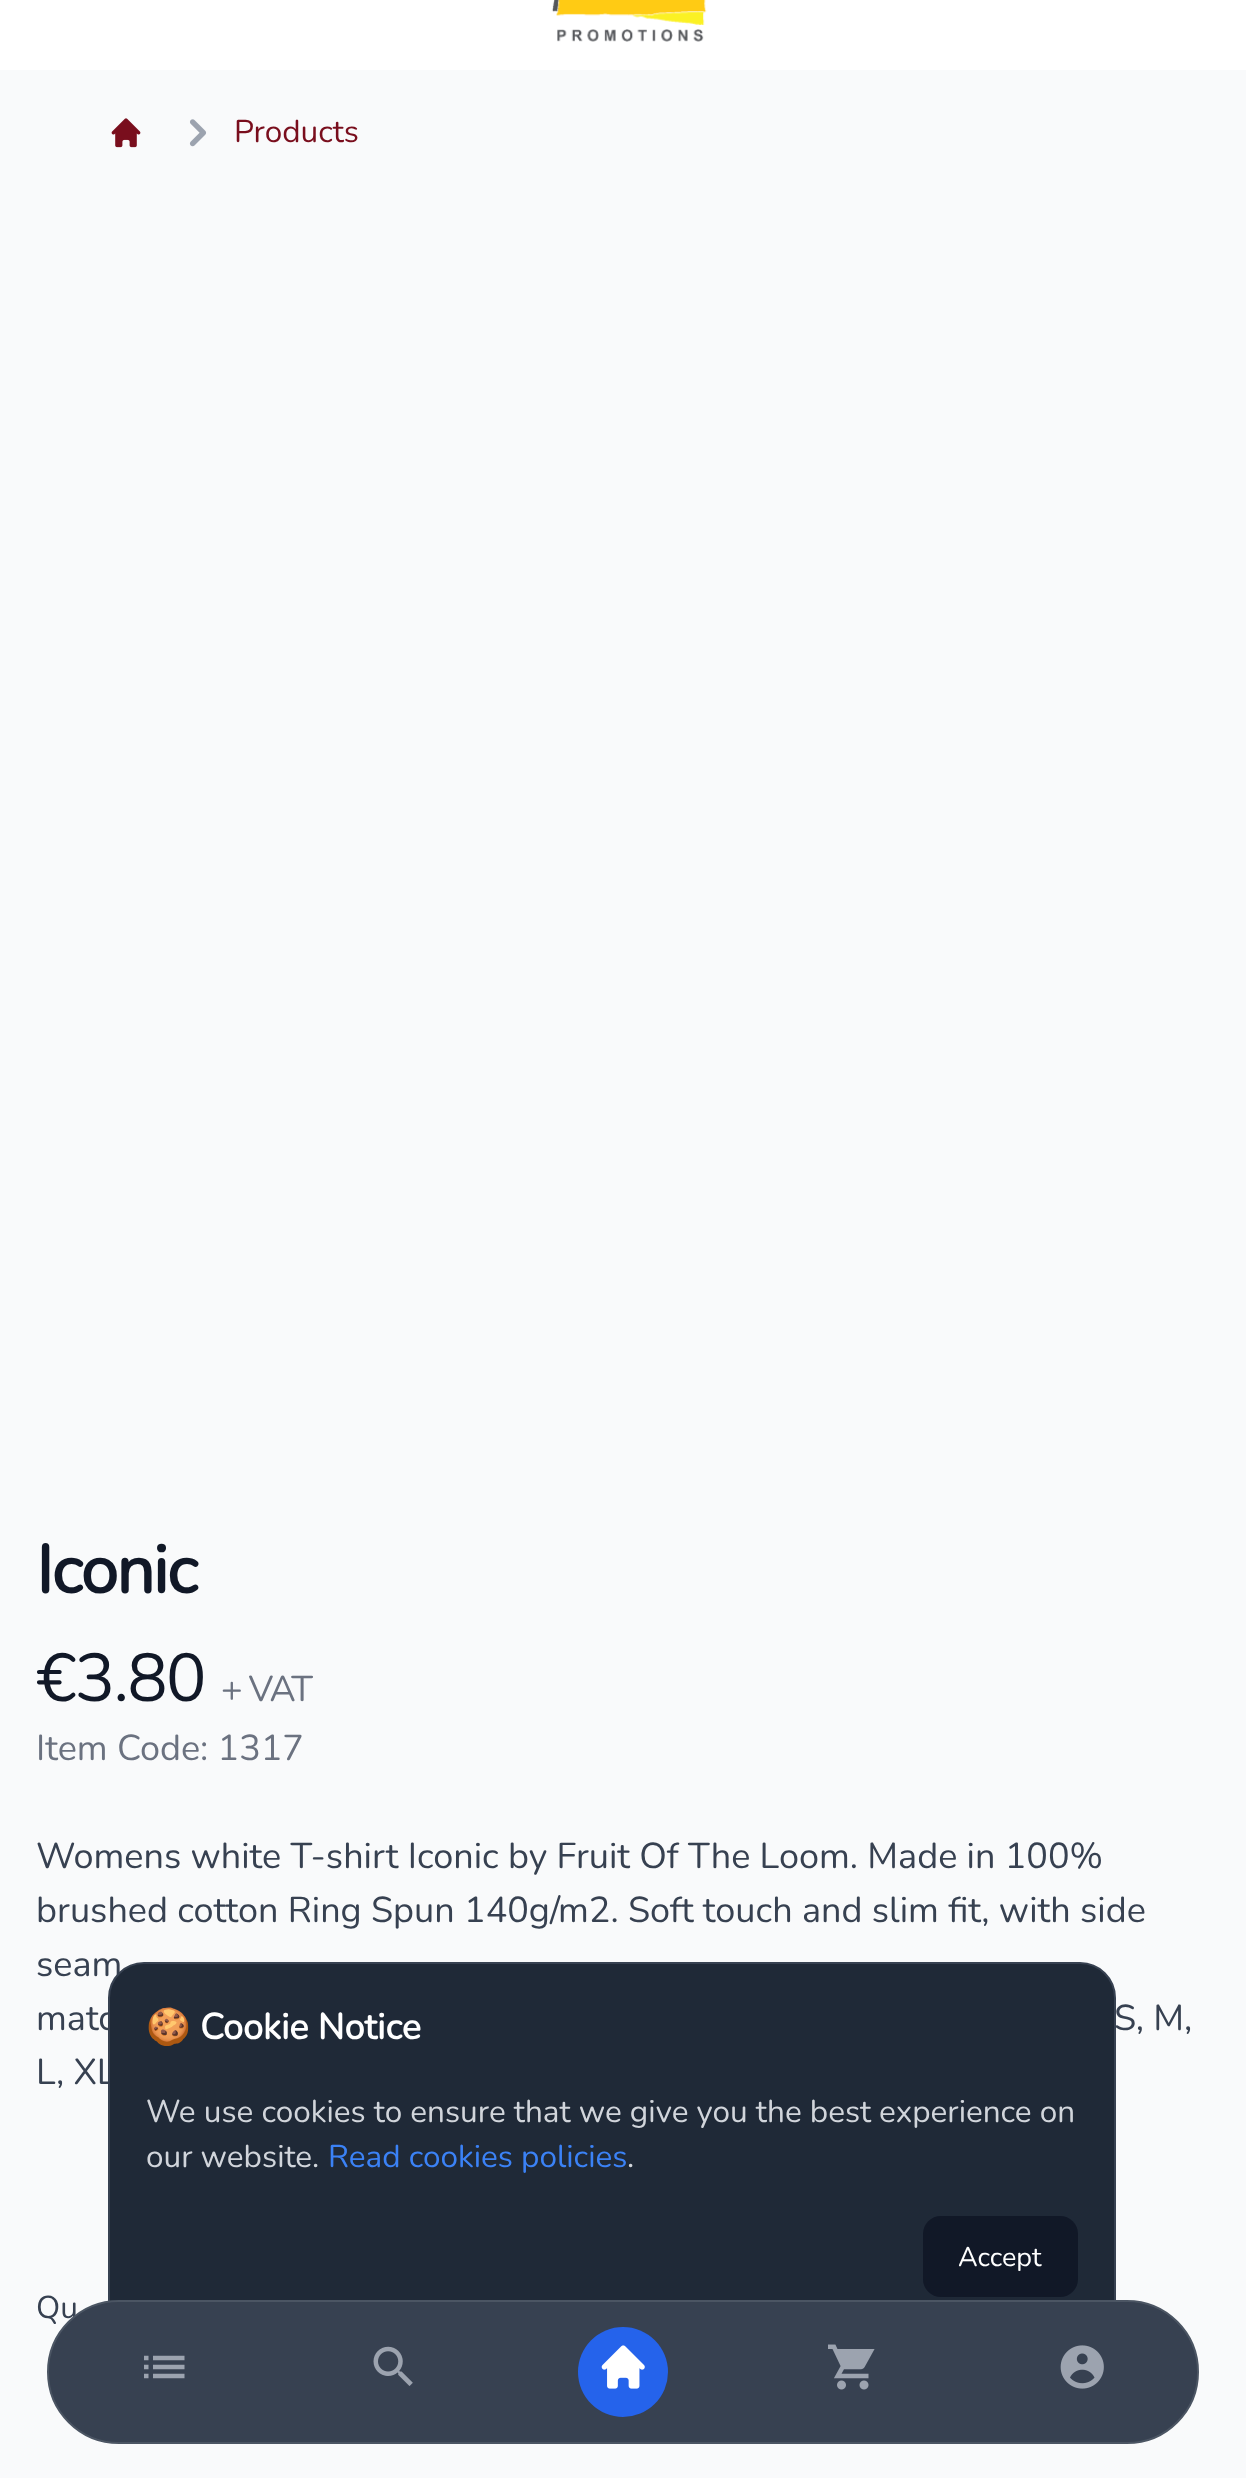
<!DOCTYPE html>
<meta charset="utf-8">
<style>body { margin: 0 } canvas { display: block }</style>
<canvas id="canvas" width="1246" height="2478"></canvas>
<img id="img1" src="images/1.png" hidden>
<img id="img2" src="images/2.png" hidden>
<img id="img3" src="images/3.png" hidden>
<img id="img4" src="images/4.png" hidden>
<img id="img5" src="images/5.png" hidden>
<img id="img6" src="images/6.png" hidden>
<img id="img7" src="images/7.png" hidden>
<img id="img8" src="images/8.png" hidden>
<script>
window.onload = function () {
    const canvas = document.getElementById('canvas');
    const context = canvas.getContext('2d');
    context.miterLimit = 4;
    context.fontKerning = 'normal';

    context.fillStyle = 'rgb(255, 255, 255)';
    context.fillRect(0, 0, 1246, 2478);
    context.drawImage(document.getElementById('img1'), 551, 0, 156, 42);
    context.fillStyle = 'rgb(249, 250, 251)';
    context.fillRect(0, 70, 1246, 2408);
    context.drawImage(document.getElementById('img2'), 111, 118, 30, 30);
    context.drawImage(document.getElementById('img3'), 189, 119, 18, 28);
    context.font = '200 31.5px Nunito';
    context.fillStyle = 'rgb(121, 14, 29)';
    context.fillText('Products', 234, 142);
    context.letterSpacing = '-1.75px';
    context.font = 'bold 67.5px Nunito';
    context.fillStyle = 'rgb(17, 24, 39)';
    context.fillText('Iconic', 36, 1593);
    context.font = '200 67.5px Nunito';
    context.fillText('€3.80', 36, 1701);
    context.font = '200 36px Nunito';
    context.fillStyle = 'rgb(107, 114, 128)';
    context.fillText('+ VAT', 221, 1701);
    context.letterSpacing = '0px';
    context.fillText('Item Code: 1317', 36, 1760);
    context.fillStyle = 'rgb(55, 65, 81)';
    context.fillText('Womens white T-shirt Iconic by Fruit Of The Loom. Made in 100%', 36, 1868);
    context.fillText('brushed cotton Ring Spun 140g/m2. Soft touch and slim fit, with side', 36, 1922);
    context.fillText('seam', 36, 1976);
    context.fillText('matc', 36, 2030);
    context.fillText('S, M,', 1114, 2030);
    context.fillText('L, XL', 36, 2084);
    context.font = '200 31.5px Nunito';
    context.fillText('Qu', 36, 2318);
    context.fillStyle = 'rgb(31, 41, 55)';
    context.beginPath();
    context.roundRect(109, 1963, 1006, 372, 35);
    context.fill();
    context.strokeStyle = 'rgb(55, 65, 81)';
    context.lineWidth = 2;
    context.stroke();
    context.font = '36px Noto Color Emoji';
    context.fillStyle = 'rgb(255, 255, 255)';
    context.fillText('🍪', 146, 2039);
    context.font = 'bold 36px Nunito';
    context.fillText('Cookie Notice', 200, 2039);
    context.font = '200 31.5px Nunito';
    context.fillStyle = 'rgb(209, 213, 219)';
    context.fillText('We use cookies to ensure that we give you the best experience on', 146, 2122);
    context.fillText('our website.', 146, 2167);
    context.fillStyle = 'rgb(59, 130, 246)';
    context.fillText('Read cookies policies', 328, 2167);
    context.fillStyle = 'rgb(209, 213, 219)';
    context.fillText('.', 627, 2167);
    context.fillStyle = 'rgb(17, 24, 39)';
    context.beginPath();
    context.roundRect(923, 2216, 155, 81, 18);
    context.fill();
    context.font = '200 27px Nunito';
    context.fillStyle = 'rgb(255, 255, 255)';
    context.fillText('Accept', 958, 2266);
    context.fillStyle = 'rgb(55, 65, 81)';
    context.beginPath();
    context.roundRect(48, 2301, 1150, 142, 71);
    context.fill();
    context.strokeStyle = 'rgb(75, 85, 99)';
    context.stroke();
    context.drawImage(document.getElementById('img4'), 144, 2355, 41, 24);
    context.drawImage(document.getElementById('img5'), 373, 2346, 40, 40);
    context.fillStyle = 'rgb(37, 99, 235)';
    context.beginPath();
    context.arc(623, 2372, 45, 0, 2 * Math.PI);
    context.fill();
    context.drawImage(document.getElementById('img6'), 601, 2345, 44, 44);
    context.drawImage(document.getElementById('img7'), 828, 2344, 47, 46);
    context.drawImage(document.getElementById('img8'), 1060, 2345, 44, 44);
};
</script>
